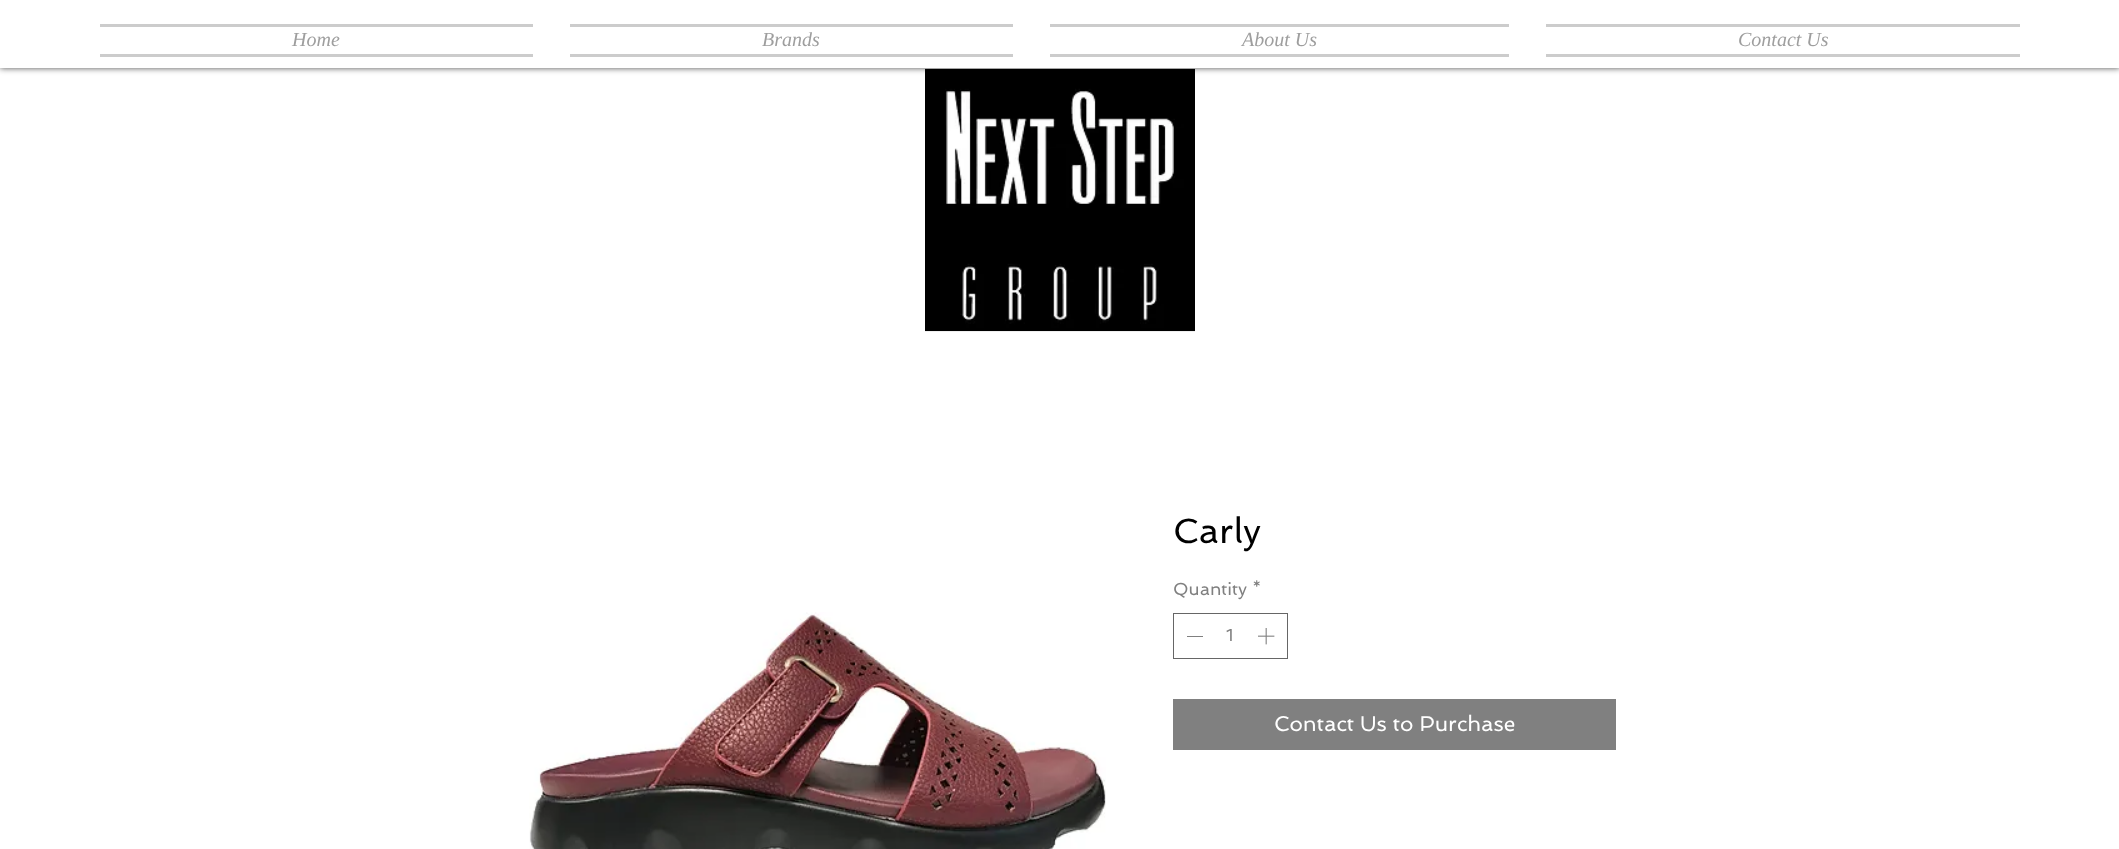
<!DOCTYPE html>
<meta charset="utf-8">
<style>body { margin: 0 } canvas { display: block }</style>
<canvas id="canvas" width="2119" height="849"></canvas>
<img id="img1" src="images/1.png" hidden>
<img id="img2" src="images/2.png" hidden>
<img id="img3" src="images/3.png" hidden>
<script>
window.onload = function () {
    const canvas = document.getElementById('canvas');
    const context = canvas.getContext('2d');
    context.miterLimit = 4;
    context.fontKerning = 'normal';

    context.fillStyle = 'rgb(255, 255, 255)';
    context.fillRect(0, 0, 2119, 849);
    context.drawImage(document.getElementById('img1'), 925, 68, 270, 264);
    context.fillStyle = 'rgba(0, 0, 0, 0.7)';
    context.filter = 'blur(3px)';
    context.beginPath();
    context.rect(0, 0, 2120, 68);
    context.fill();
    context.filter = 'none';
    context.fillStyle = 'rgb(255, 255, 255)';
    context.fillRect(0, 0, 2119, 68);
    context.fillStyle = 'rgb(204, 204, 204)';
    context.fillRect(100, 24, 433, 3);
    context.fillRect(100, 54, 433, 3);
    context.fillRect(570, 24, 443, 3);
    context.fillRect(570, 54, 443, 3);
    context.fillRect(1050, 24, 459, 3);
    context.fillRect(1050, 54, 459, 3);
    context.fillRect(1546, 24, 474, 3);
    context.fillRect(1546, 54, 474, 3);
    context.drawImage(document.getElementById('img2'), 529, 612, 577, 237);
    context.strokeStyle = 'rgb(102, 102, 102)';
    context.strokeRect(1173.5, 613.5, 114, 45);
    context.fillStyle = 'rgb(128, 128, 128)';
    context.fillRect(1187, 636, 16, 1);
    context.drawImage(document.getElementById('img3'), 1258, 628, 17, 17);
    context.fillRect(1173, 699, 443, 51);
    context.font = 'italic 20px Liberation Serif';
    context.fillStyle = 'rgb(158, 158, 158)';
    context.fillText('Home', 292, 46);
    context.fillText('Brands', 762, 46);
    context.fillText('About Us', 1242, 46);
    context.fillText('Contact Us', 1738, 46);
    context.font = '35px Spinnaker';
    context.fillStyle = 'rgb(0, 0, 0)';
    context.fillText('Carly', 1173, 543);
    context.font = '17.5px Spinnaker';
    context.fillStyle = 'rgb(128, 128, 128)';
    context.fillText('Quantity *', 1173, 595);
    context.fillText('1', 1226, 641);
    context.font = '21.25px Spinnaker';
    context.fillStyle = 'rgb(255, 255, 255)';
    context.fillText('Contact Us to Purchase', 1274, 731);
};
</script>
